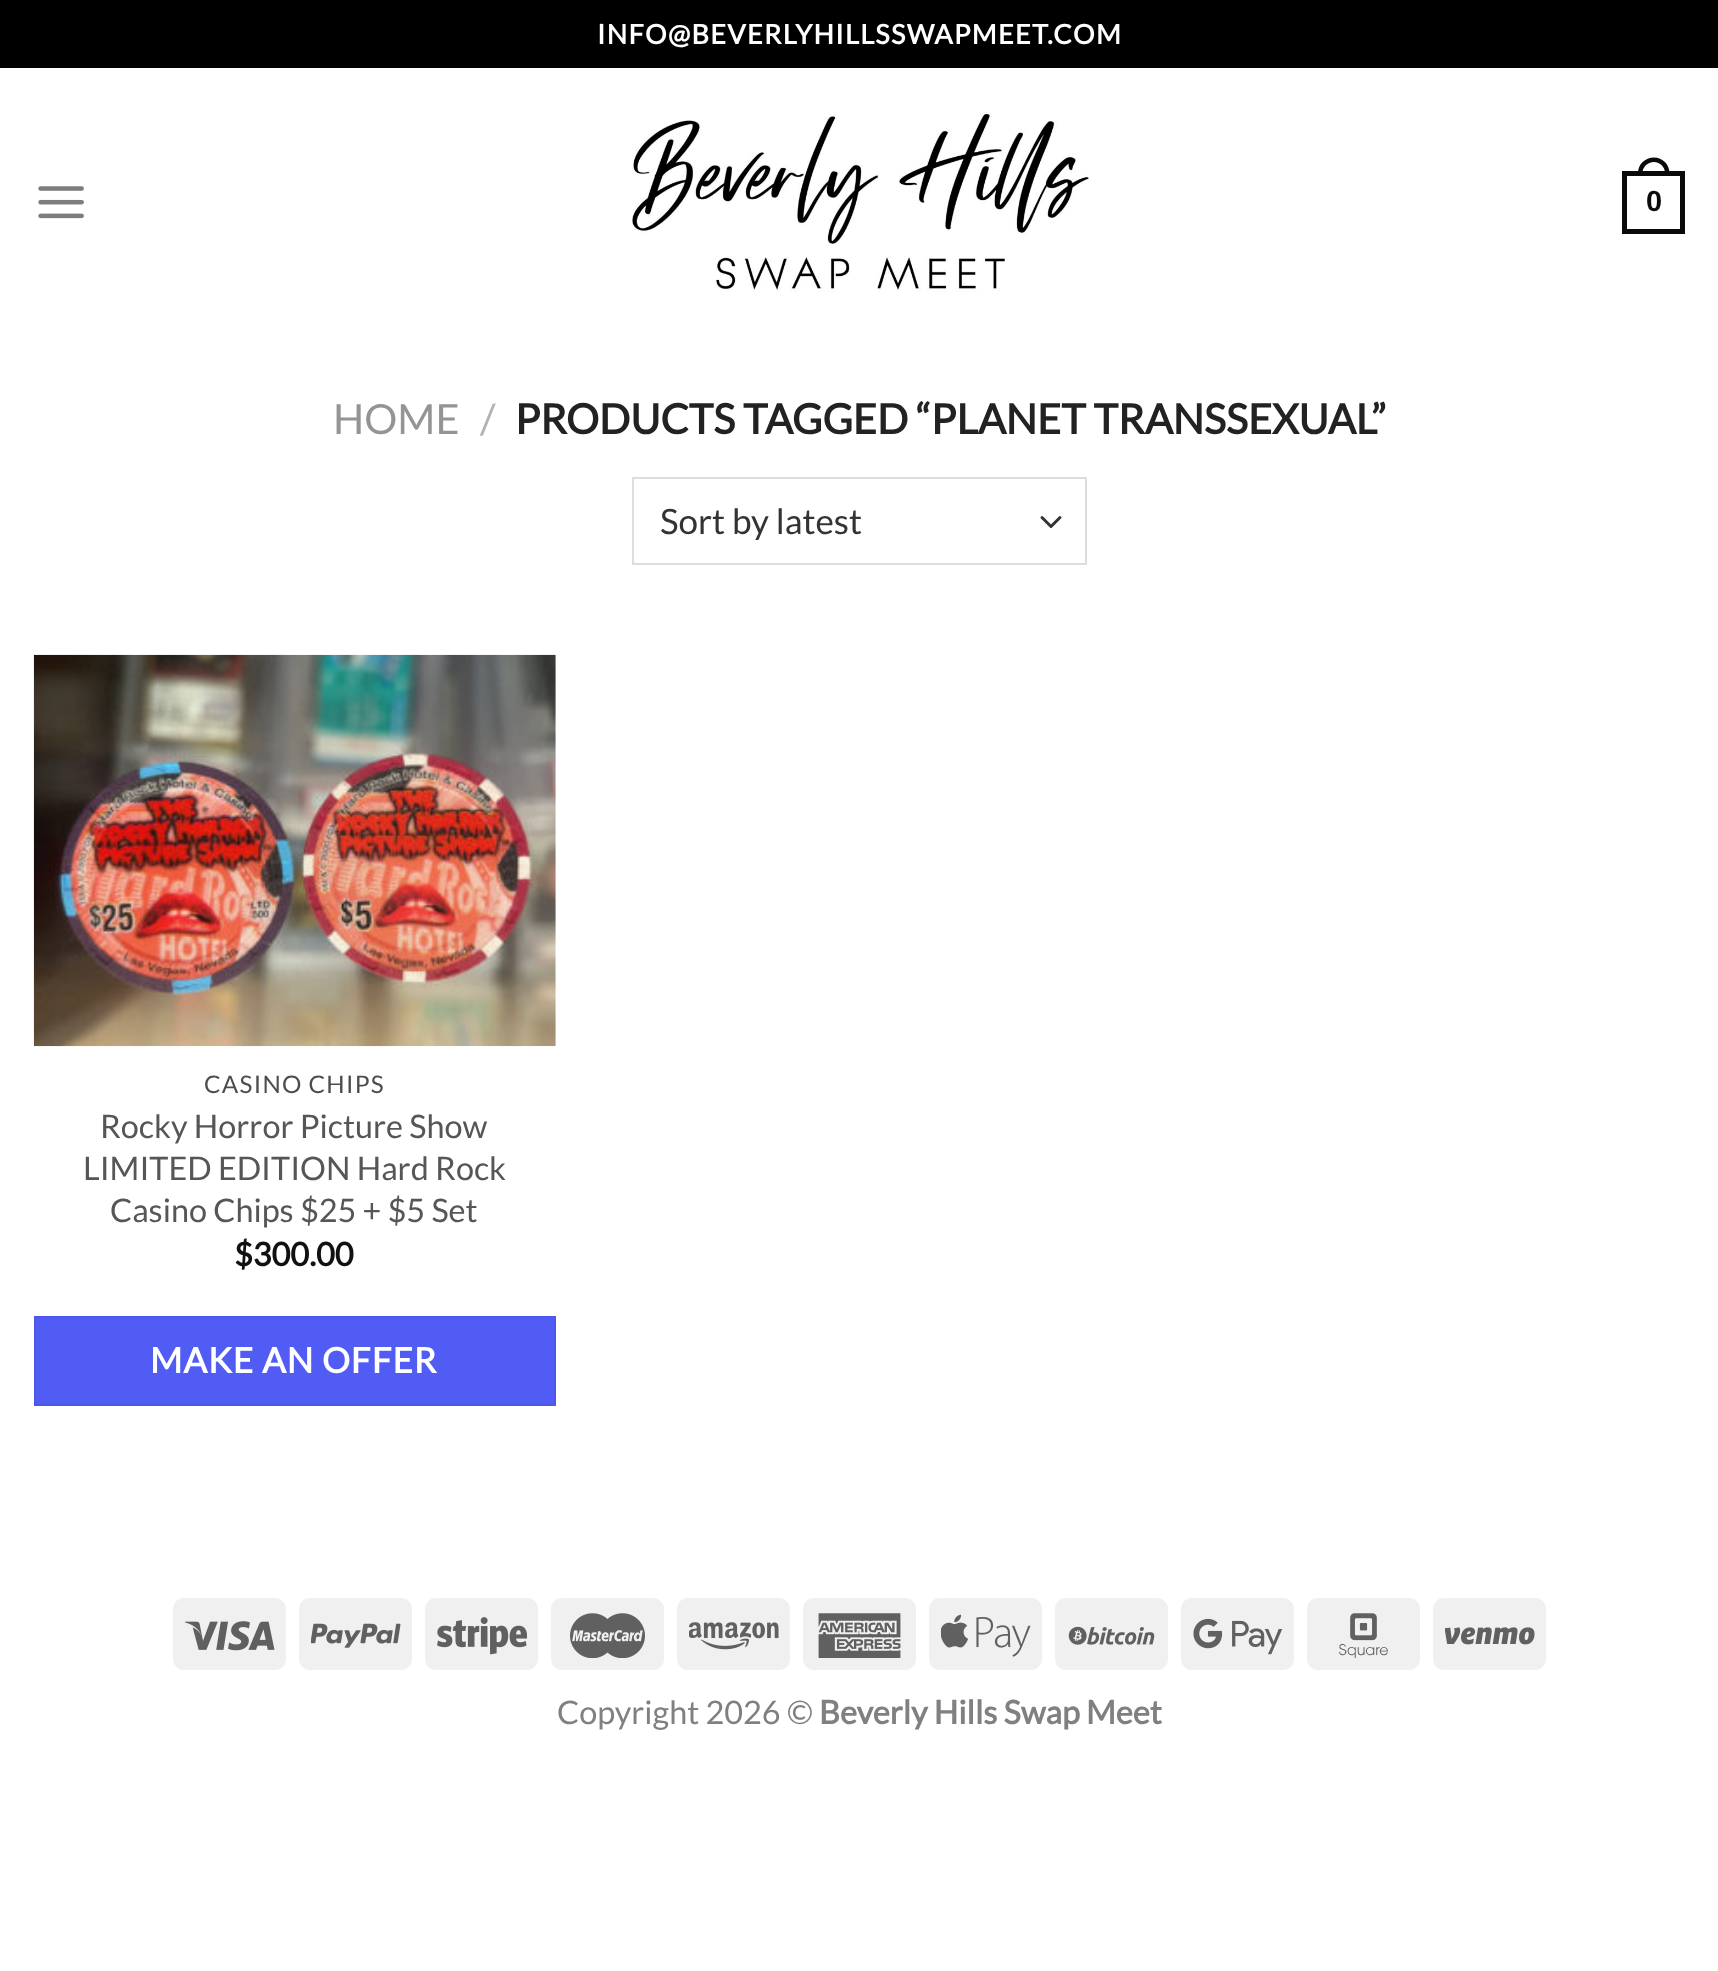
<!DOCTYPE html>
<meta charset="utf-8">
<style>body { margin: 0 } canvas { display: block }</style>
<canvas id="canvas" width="1718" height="1971"></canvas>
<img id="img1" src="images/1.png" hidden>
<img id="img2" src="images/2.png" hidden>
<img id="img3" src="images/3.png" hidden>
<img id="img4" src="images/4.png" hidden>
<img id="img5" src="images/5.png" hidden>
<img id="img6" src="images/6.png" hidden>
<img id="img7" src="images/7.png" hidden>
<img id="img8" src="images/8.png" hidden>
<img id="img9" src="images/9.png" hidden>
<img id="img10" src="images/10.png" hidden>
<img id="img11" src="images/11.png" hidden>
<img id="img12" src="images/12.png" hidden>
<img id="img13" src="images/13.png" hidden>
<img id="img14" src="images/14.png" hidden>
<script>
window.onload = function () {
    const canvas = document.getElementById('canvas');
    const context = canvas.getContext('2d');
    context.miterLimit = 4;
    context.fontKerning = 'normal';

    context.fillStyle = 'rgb(255, 255, 255)';
    context.fillRect(0, 0, 1718, 1971);
    context.fillStyle = 'rgb(0, 0, 0)';
    context.fillRect(0, 0, 1718, 68);
    context.drawImage(document.getElementById('img1'), 38, 186, 46, 33);
    context.drawImage(document.getElementById('img2'), 632, 112, 459, 180);
    context.strokeStyle = 'rgb(10, 10, 10)';
    context.lineWidth = 5;
    context.strokeRect(1624.5, 173.5, 58, 58);
    context.fillStyle = 'rgb(10, 10, 10)';
    context.beginPath();
    context.moveTo(1654, 157.5);
    context.bezierCurveTo(1662.5, 157.5, 1669.5, 164.5, 1669.5, 173);
    context.lineTo(1669.5, 175.5);
    context.lineTo(1638, 175.5);
    context.lineTo(1638, 173);
    context.bezierCurveTo(1638, 164.5, 1645, 157.5, 1654, 157.5);
    context.closePath();
    context.moveTo(1654, 162);
    context.bezierCurveTo(1660, 162, 1665, 167, 1665, 173);
    context.lineTo(1665, 175.5);
    context.lineTo(1642.5, 175.5);
    context.lineTo(1642.5, 173);
    context.bezierCurveTo(1642.5, 167, 1647.5, 162, 1654, 162);
    context.closePath();
    context.fill('evenodd');
    context.beginPath();
    context.moveTo(1042, 517.5);
    context.lineTo(1051, 526.5);
    context.lineTo(1060, 517.5);
    context.strokeStyle = 'rgb(51, 51, 51)';
    context.lineWidth = 3;
    context.lineCap = 'round';
    context.lineJoin = 'round';
    context.stroke();
    context.strokeStyle = 'rgb(221, 221, 221)';
    context.lineWidth = 2;
    context.lineJoin = 'miter';
    context.strokeRect(633, 478, 453, 86);
    context.drawImage(document.getElementById('img3'), 33, 654, 523, 393);
    context.fillStyle = 'rgb(81, 92, 245)';
    context.beginPath();
    context.rect(35, 1317, 520, 88);
    context.fill();
    context.strokeStyle = 'rgb(77, 87, 233)';
    context.stroke();
    context.fillStyle = 'rgb(240, 240, 240)';
    context.beginPath();
    context.roundRect(173, 1598, 113, 72, 11);
    context.fill();
    context.drawImage(document.getElementById('img4'), 185, 1621, 90, 30);
    context.beginPath();
    context.roundRect(299, 1598, 113, 72, 11);
    context.fill();
    context.drawImage(document.getElementById('img5'), 311, 1623, 90, 25);
    context.beginPath();
    context.roundRect(425, 1598, 113, 72, 11);
    context.fill();
    context.drawImage(document.getElementById('img6'), 437, 1617, 90, 38);
    context.beginPath();
    context.roundRect(551, 1598, 113, 72, 11);
    context.fill();
    context.drawImage(document.getElementById('img7'), 570, 1613, 75, 45);
    context.beginPath();
    context.roundRect(677, 1598, 113, 72, 11);
    context.fill();
    context.drawImage(document.getElementById('img8'), 689, 1622, 90, 28);
    context.beginPath();
    context.roundRect(803, 1598, 113, 72, 11);
    context.fill();
    context.drawImage(document.getElementById('img9'), 818, 1613, 83, 45);
    context.beginPath();
    context.roundRect(929, 1598, 113, 72, 11);
    context.fill();
    context.drawImage(document.getElementById('img10'), 941, 1614, 90, 43);
    context.beginPath();
    context.roundRect(1055, 1598, 113, 72, 11);
    context.fill();
    context.drawImage(document.getElementById('img11'), 1068, 1626, 87, 19);
    context.beginPath();
    context.roundRect(1181, 1598, 113, 72, 11);
    context.fill();
    context.drawImage(document.getElementById('img12'), 1193, 1618, 90, 37);
    context.beginPath();
    context.roundRect(1307, 1598, 113, 72, 11);
    context.fill();
    context.drawImage(document.getElementById('img13'), 1339, 1613, 49, 45);
    context.beginPath();
    context.roundRect(1433, 1598, 113, 72, 11);
    context.fill();
    context.drawImage(document.getElementById('img14'), 1445, 1627, 90, 18);
    context.letterSpacing = '1.35px';
    context.font = 'bold 27px Lato';
    context.fillStyle = 'rgb(255, 255, 255)';
    context.fillText('INFO@BEVERLYHILLSSWAPMEET.COM', 597, 44);
    context.letterSpacing = '0px';
    context.font = 'bold 29px Liberation Sans';
    context.fillStyle = 'rgb(10, 10, 10)';
    context.fillText('0', 1646, 211);
    context.font = '41.4px Lato';
    context.fillStyle = 'rgb(148, 148, 148)';
    context.fillText('HOME', 333, 434);
    context.fillStyle = 'rgb(178, 178, 178)';
    context.fillText('/', 480, 434);
    context.font = 'bold 41.4px Lato';
    context.fillStyle = 'rgb(34, 34, 34)';
    context.fillText('PRODUCTS TAGGED “PLANET TRANSSEXUAL”', 515, 434);
    context.font = '35px Lato';
    context.fillStyle = 'rgb(51, 51, 51)';
    context.fillText('Sort by latest', 660, 534);
    context.letterSpacing = '1.25px';
    context.font = '24.25px Lato';
    context.fillStyle = 'rgb(77, 77, 77)';
    context.fillText('CASINO CHIPS', 204, 1093);
    context.letterSpacing = '0px';
    context.font = '32.4px Lato';
    context.fillStyle = 'rgb(86, 86, 86)';
    context.fillText('Rocky Horror Picture Show', 100, 1138);
    context.fillText('LIMITED EDITION Hard Rock', 83, 1180);
    context.fillText('Casino Chips $25 + $5 Set', 110, 1222);
    context.font = 'bold 32.4px Lato';
    context.fillStyle = 'rgb(17, 17, 17)';
    context.fillText('$300.00', 234, 1266);
    context.letterSpacing = '1px';
    context.font = 'bold 35px Lato';
    context.fillStyle = 'rgb(255, 255, 255)';
    context.fillText('MAKE AN OFFER', 150, 1373);
    context.letterSpacing = '0px';
    context.font = '32.4px Lato';
    context.fillStyle = 'rgb(128, 128, 128)';
    context.fillText('Copyright 2026 ©', 557, 1724);
    context.font = 'bold 32.4px Lato';
    context.fillText('Beverly Hills Swap Meet', 819, 1724);
};
</script>
